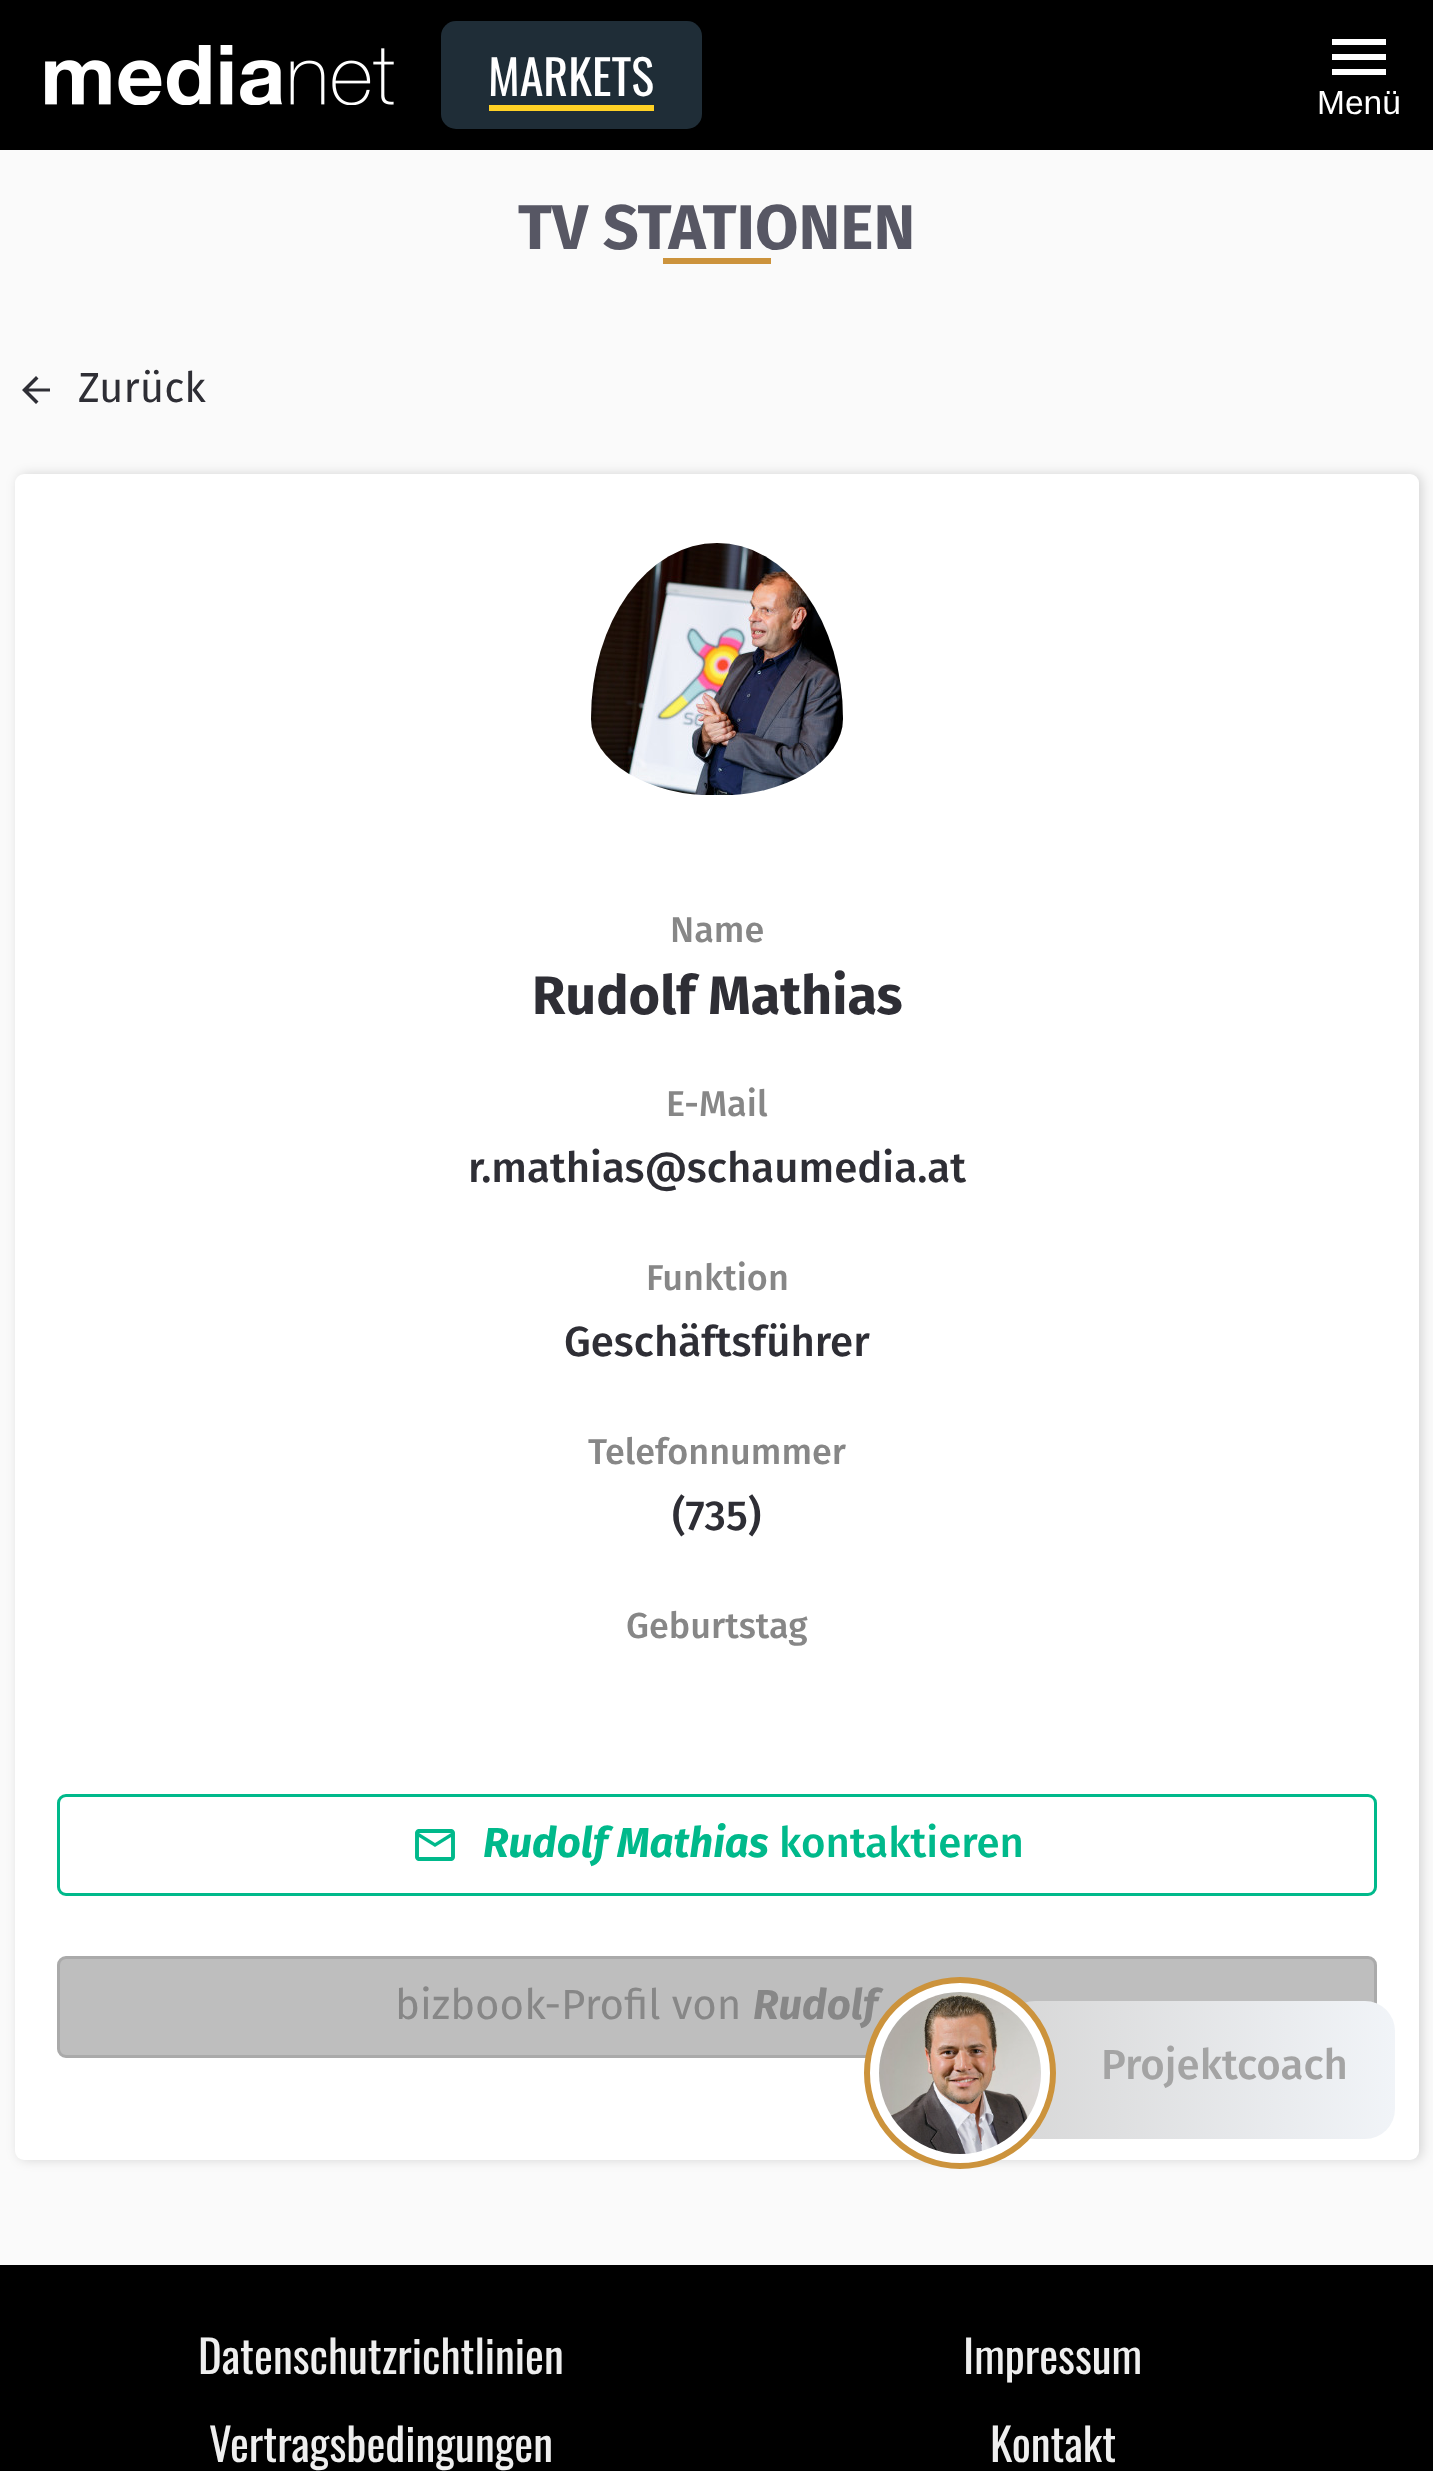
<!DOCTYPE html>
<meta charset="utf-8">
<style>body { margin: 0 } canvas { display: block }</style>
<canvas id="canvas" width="1433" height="2471"></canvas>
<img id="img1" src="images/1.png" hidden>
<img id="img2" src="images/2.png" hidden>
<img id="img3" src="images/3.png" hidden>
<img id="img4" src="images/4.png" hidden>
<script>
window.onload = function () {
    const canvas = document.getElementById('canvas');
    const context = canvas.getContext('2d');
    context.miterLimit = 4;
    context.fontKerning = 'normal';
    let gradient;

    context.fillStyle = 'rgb(250, 250, 250)';
    context.fillRect(0, 0, 1433, 2471);
    context.fillStyle = 'rgb(0, 0, 0)';
    context.fillRect(0, 0, 1433, 150);
    context.drawImage(document.getElementById('img1'), 45, 45, 349, 60);
    context.fillStyle = 'rgb(31, 45, 55)';
    context.beginPath();
    context.roundRect(441, 21, 261, 108, 15);
    context.fill();
    context.fillStyle = 'rgb(255, 209, 37)';
    context.fillRect(489, 105, 165, 6);
    context.fillStyle = 'rgb(255, 255, 255)';
    context.beginPath();
    context.moveTo(1332, 75);
    context.lineTo(1332, 69);
    context.lineTo(1386, 69);
    context.lineTo(1386, 75);
    context.closePath();
    context.moveTo(1332, 60);
    context.lineTo(1332, 54);
    context.lineTo(1386, 54);
    context.lineTo(1386, 60);
    context.closePath();
    context.moveTo(1332, 45);
    context.lineTo(1332, 39);
    context.lineTo(1386, 39);
    context.lineTo(1386, 45);
    context.closePath();
    context.fill();
    context.fillStyle = 'rgb(204, 147, 60)';
    context.fillRect(663, 258, 108, 6);
    context.fillStyle = 'rgb(46, 46, 53)';
    context.beginPath();
    context.moveTo(50, 388.5);
    context.lineTo(50, 391.5);
    context.lineTo(28.5, 391.5);
    context.lineTo(38.5, 401.5);
    context.lineTo(36, 404);
    context.lineTo(22, 390);
    context.lineTo(36, 376);
    context.lineTo(38.5, 378.5);
    context.lineTo(28.5, 388.5);
    context.closePath();
    context.fill();
    context.fillStyle = 'rgba(0, 0, 0, 0.15)';
    context.filter = 'blur(6px)';
    context.beginPath();
    context.roundRect(18, 474, 1404, 1686, 9);
    context.fill();
    context.filter = 'none';
    context.fillStyle = 'rgb(255, 255, 255)';
    context.beginPath();
    context.roundRect(15, 474, 1404, 1686, 9);
    context.fill();
    context.drawImage(document.getElementById('img2'), 591, 543, 252, 252);
    context.beginPath();
    context.roundRect(58.5, 1795.5, 1317, 99, 7.5);
    context.strokeStyle = 'rgb(0, 185, 139)';
    context.lineWidth = 3;
    context.stroke();
    context.drawImage(document.getElementById('img3'), 415, 1829, 40, 32);
    context.fillStyle = 'rgb(190, 190, 190)';
    context.beginPath();
    context.roundRect(58.5, 1957.5, 1317, 99, 7.5);
    context.fill();
    context.strokeStyle = 'rgb(170, 170, 170)';
    context.stroke();
    gradient = context.createLinearGradient(1005, 2070, 1395, 2070);
    gradient.addColorStop(0, 'rgb(215, 215, 215)');
    gradient.addColorStop(1, 'rgb(241, 244, 248)');
    context.fillStyle = gradient;
    context.beginPath();
    context.roundRect(1005, 2001, 390, 138, 30);
    context.fill();
    context.fillStyle = 'rgb(0, 0, 0)';
    context.fillRect(0, 2265, 1433, 206);
    context.font = '48px Oswald';
    context.fillStyle = 'rgb(255, 255, 255)';
    context.fillText('MARKETS', 488, 96);
    context.font = '33.5px Liberation Sans';
    context.fillText('Menü', 1317, 114);
    context.font = 'bold 63px Fira Sans';
    context.fillStyle = 'rgb(87, 87, 100)';
    context.fillText('TV STATIONEN', 518, 249);
    context.font = '42px Fira Sans';
    context.fillStyle = 'rgb(46, 46, 53)';
    context.fillText('Zurück', 78, 402);
    context.font = '500 36px Fira Sans';
    context.fillStyle = 'rgb(135, 135, 135)';
    context.fillText('Name', 670, 942);
    context.font = 'bold 54px Fira Sans';
    context.fillStyle = 'rgb(46, 46, 53)';
    context.fillText('Rudolf Mathias', 532, 1014);
    context.font = '500 36px Fira Sans';
    context.fillStyle = 'rgb(135, 135, 135)';
    context.fillText('E-Mail', 666, 1116);
    context.font = '500 42px Fira Sans';
    context.fillStyle = 'rgb(46, 46, 53)';
    context.fillText('r.mathias@schaumedia.at', 468, 1182);
    context.font = '500 36px Fira Sans';
    context.fillStyle = 'rgb(135, 135, 135)';
    context.fillText('Funktion', 646, 1290);
    context.font = '500 42px Fira Sans';
    context.fillStyle = 'rgb(46, 46, 53)';
    context.fillText('Geschäftsführer', 564, 1356);
    context.font = '500 36px Fira Sans';
    context.fillStyle = 'rgb(135, 135, 135)';
    context.fillText('Telefonnummer', 588, 1464);
    context.font = '500 42px Fira Sans';
    context.fillStyle = 'rgb(46, 46, 53)';
    context.fillText('(735)', 672, 1530);
    context.font = '500 36px Fira Sans';
    context.fillStyle = 'rgb(135, 135, 135)';
    context.fillText('Geburtstag', 626, 1638);
    context.font = 'italic bold 42px Fira Sans';
    context.fillStyle = 'rgb(0, 185, 139)';
    context.fillText('Rudolf Mathias', 483, 1857);
    context.font = '500 42px Fira Sans';
    context.fillText('kontaktieren', 779, 1857);
    context.font = '42px Fira Sans';
    context.fillStyle = 'rgb(135, 135, 135)';
    context.fillText('bizbook-Profil von', 395, 2019);
    context.font = 'italic bold 42px Fira Sans';
    context.fillText('Rudolf', 753, 2019);
    context.fillStyle = 'rgb(255, 255, 255)';
    context.beginPath();
    context.arc(960, 2073, 93, 0, 2 * Math.PI);
    context.fill();
    context.strokeStyle = 'rgb(204, 147, 60)';
    context.lineWidth = 6;
    context.stroke();
    context.drawImage(document.getElementById('img4'), 879, 1992, 162, 162);
    context.font = '500 42px Fira Sans';
    context.fillStyle = 'rgb(164, 164, 164)';
    context.fillText('Projektcoach', 1101, 2079);
    context.font = '45px Oswald';
    context.fillStyle = 'rgb(238, 238, 238)';
    context.fillText('Datenschutzrichtlinien', 198, 2374);
    context.fillText('Impressum', 963, 2374);
    context.fillText('Vertragsbedingungen', 209, 2462);
    context.fillText('Kontakt', 990, 2462);
};
</script>
